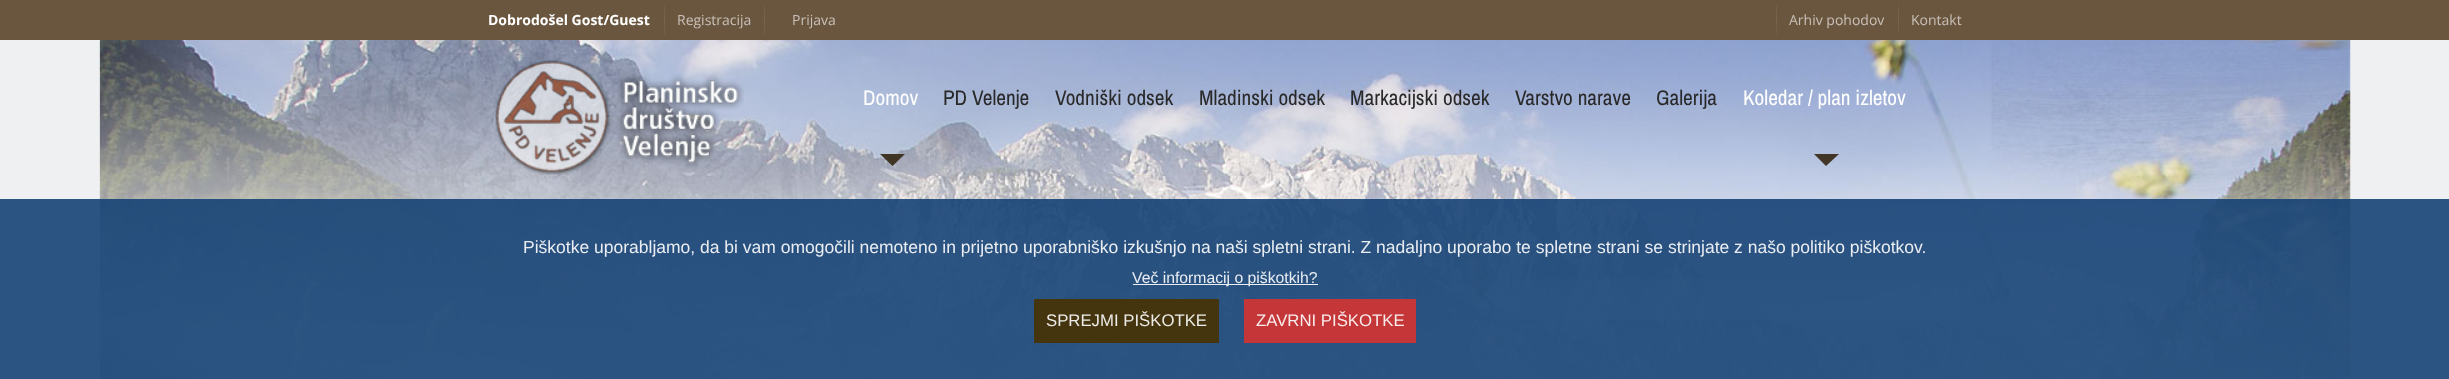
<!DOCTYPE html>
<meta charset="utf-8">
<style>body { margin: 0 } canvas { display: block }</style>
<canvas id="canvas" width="2449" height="379"></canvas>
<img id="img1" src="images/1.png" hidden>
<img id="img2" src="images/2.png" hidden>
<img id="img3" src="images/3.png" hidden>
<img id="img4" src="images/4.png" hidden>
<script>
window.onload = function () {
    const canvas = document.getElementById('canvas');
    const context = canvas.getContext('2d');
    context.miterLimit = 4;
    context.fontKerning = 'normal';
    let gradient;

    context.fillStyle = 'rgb(239, 240, 241)';
    context.fillRect(0, 0, 2449, 379);
    context.drawImage(document.getElementById('img1'), 99, 40, 2252, 339);
    context.drawImage(document.getElementById('img2'), 99, 40, 2252, 136);
    context.fillStyle = 'rgb(106, 86, 62)';
    context.fillRect(0, 0, 2449, 40);
    gradient = context.createLinearGradient(664, 3.8, 664, 36);
    gradient.addColorStop(0, 'rgb(110, 91, 67)');
    gradient.addColorStop(0.5, 'rgb(119, 101, 79)');
    gradient.addColorStop(1, 'rgb(110, 91, 67)');
    context.fillStyle = gradient;
    context.fillRect(664, 4, 1, 32);
    gradient = context.createLinearGradient(764, 3.8, 764, 36);
    gradient.addColorStop(0, 'rgb(110, 91, 67)');
    gradient.addColorStop(0.5, 'rgb(119, 101, 79)');
    gradient.addColorStop(1, 'rgb(110, 91, 67)');
    context.fillStyle = gradient;
    context.fillRect(764, 4, 1, 32);
    gradient = context.createLinearGradient(1777, 3.8, 1777, 35);
    gradient.addColorStop(0, 'rgb(110, 91, 67)');
    gradient.addColorStop(0.5, 'rgb(119, 101, 79)');
    gradient.addColorStop(1, 'rgb(110, 91, 67)');
    context.fillStyle = gradient;
    context.fillRect(1776, 4, 1, 31);
    gradient = context.createLinearGradient(1898, 3.8, 1898, 35);
    gradient.addColorStop(0, 'rgb(110, 91, 67)');
    gradient.addColorStop(0.5, 'rgb(119, 101, 79)');
    gradient.addColorStop(1, 'rgb(110, 91, 67)');
    context.fillStyle = gradient;
    context.fillRect(1898, 4, 1, 31);
    context.drawImage(document.getElementById('img3'), 495, 60, 249, 115);
    context.fillStyle = 'rgb(65, 53, 38)';
    context.beginPath();
    context.moveTo(880, 154);
    context.lineTo(905, 154);
    context.lineTo(892.5, 166);
    context.closePath();
    context.fill();
    context.beginPath();
    context.moveTo(1814, 154);
    context.lineTo(1839, 154);
    context.lineTo(1826, 166);
    context.closePath();
    context.fill();
    context.drawImage(document.getElementById('img4'), 99, 176, 2252, 143);
    context.fillStyle = 'rgba(255, 255, 255, 0.5)';
    context.fillRect(1494, 279, 464, 41);
    context.fillStyle = 'rgba(22, 66, 117, 0.9)';
    context.fillRect(0, 199, 2449, 180);
    context.fillStyle = 'rgba(255, 255, 255, 0.9)';
    context.fillRect(1133, 284, 185, 1);
    context.fillStyle = 'rgba(71, 50, 2, 0.9)';
    context.fillRect(1034, 299, 185, 44);
    context.fillStyle = 'rgba(213, 51, 47, 0.9)';
    context.fillRect(1244, 299, 172, 44);
    context.font = 'bold 14px Open Sans';
    context.fillStyle = 'rgb(255, 255, 255)';
    context.fillText('Dobrodošel Gost/Guest', 488, 25);
    context.font = '14px Open Sans';
    context.fillStyle = 'rgb(200, 192, 184)';
    context.fillText('Registracija', 677, 25);
    context.fillText('Prijava', 792, 25);
    context.fillText('Arhiv pohodov', 1789, 25);
    context.fillText('Kontakt', 1911, 25);
    context.font = '21.25px Archivo Narrow';
    context.fillStyle = 'rgb(255, 255, 255)';
    context.fillText('Domov', 863, 105);
    context.fillStyle = 'rgb(41, 41, 41)';
    context.fillText('PD Velenje', 943, 105);
    context.fillText('Vodniški odsek', 1055, 105);
    context.fillText('Mladinski odsek', 1199, 105);
    context.fillText('Markacijski odsek', 1350, 105);
    context.fillText('Varstvo narave', 1515, 105);
    context.fillText('Galerija', 1656, 105);
    context.fillStyle = 'rgb(255, 255, 255)';
    context.fillText('Koledar / plan izletov', 1743, 105);
    context.font = '17.5px Liberation Sans';
    context.fillStyle = 'rgb(234, 238, 242)';
    context.fillText('Piškotke uporabljamo, da bi vam omogočili nemoteno in prijetno uporabniško izkušnjo na naši spletni strani. Z nadaljno uporabo te spletne strani se strinjate z našo politiko piškotkov.', 523, 253);
    context.font = '15.75px Liberation Sans';
    context.fillText('Več informacij o piškotkih?', 1132, 283);
    context.font = '16.75px Liberation Sans';
    context.fillStyle = 'rgb(236, 235, 231)';
    context.fillText('SPREJMI PIŠKOTKE', 1046, 326);
    context.fillStyle = 'rgb(249, 235, 235)';
    context.fillText('ZAVRNI PIŠKOTKE', 1256, 326);
};
</script>
